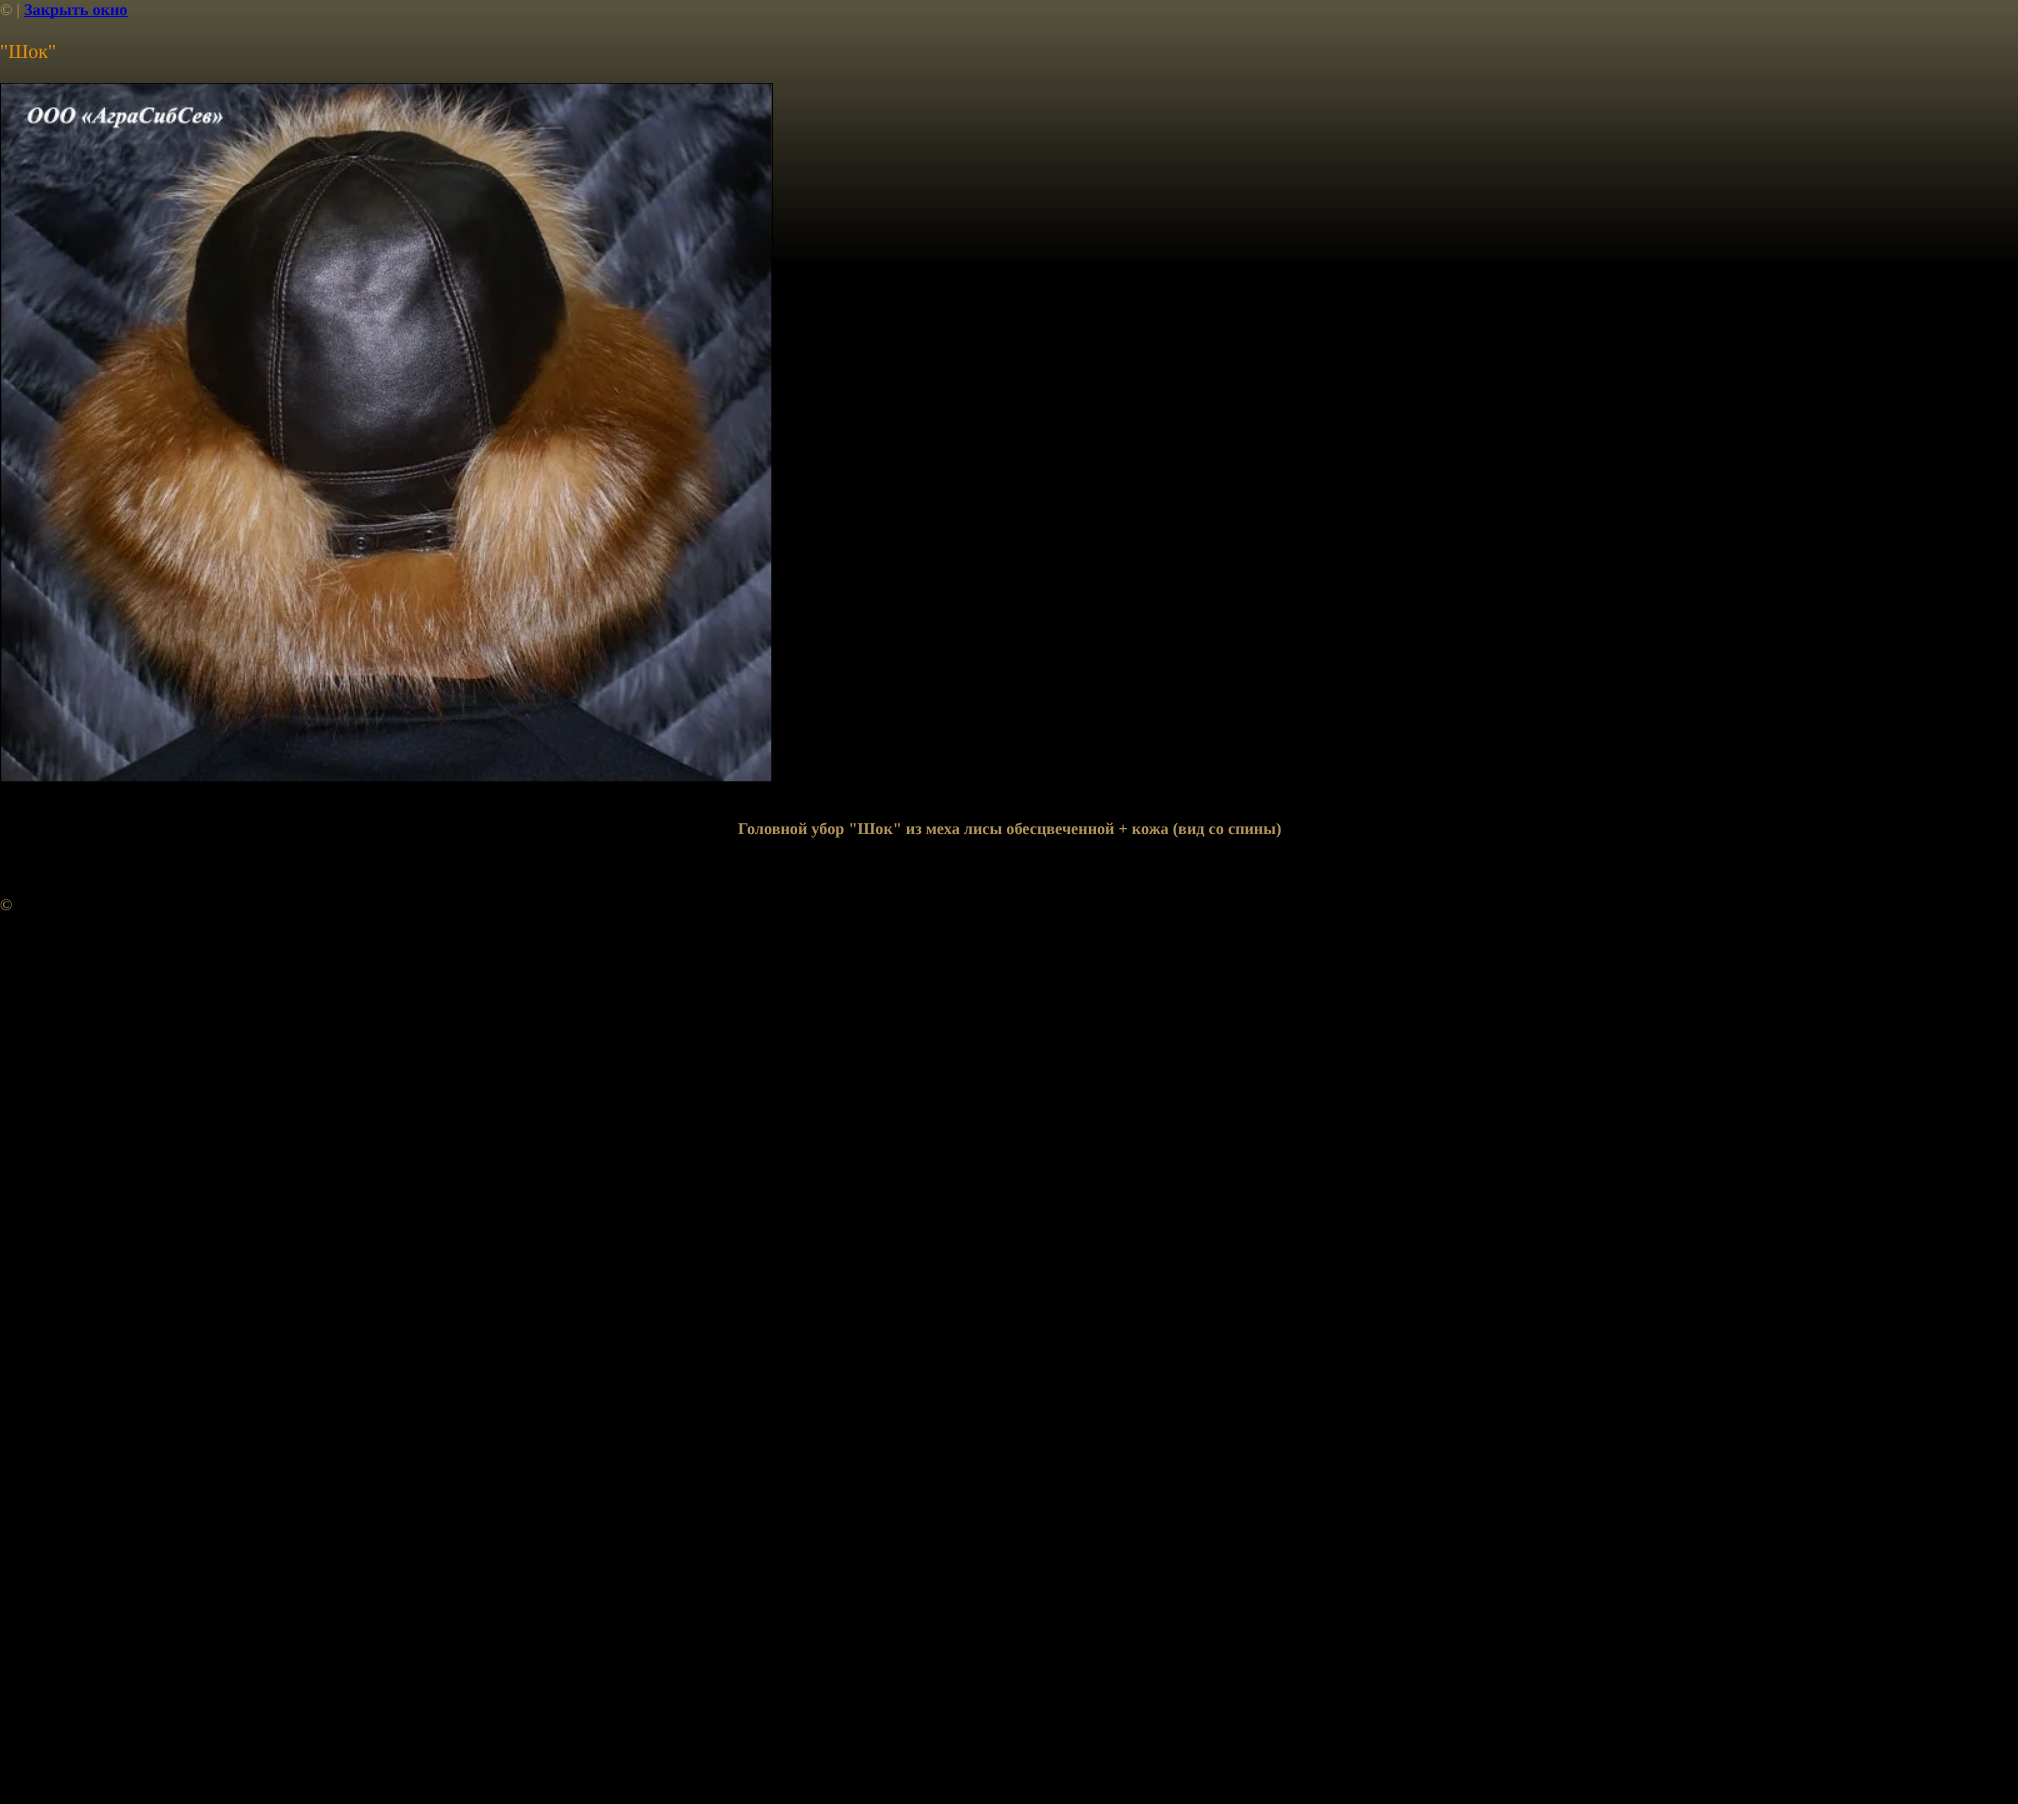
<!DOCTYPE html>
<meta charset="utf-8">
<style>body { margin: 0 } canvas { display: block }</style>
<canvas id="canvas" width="2018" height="1804"></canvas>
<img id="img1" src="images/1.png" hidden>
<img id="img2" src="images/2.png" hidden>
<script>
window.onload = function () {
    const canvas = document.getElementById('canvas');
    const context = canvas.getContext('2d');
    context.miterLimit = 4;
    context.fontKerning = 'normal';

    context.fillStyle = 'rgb(0, 0, 0)';
    context.fillRect(0, 0, 2018, 1804);
    context.drawImage(document.getElementById('img1'), 0, 0, 2018, 259);
    context.fillStyle = 'rgb(0, 0, 204)';
    context.fillRect(24, 16, 104, 1);
    context.strokeStyle = 'rgb(0, 0, 0)';
    context.strokeRect(0.5, 83.5, 772, 699);
    context.drawImage(document.getElementById('img2'), 1, 83, 771, 699);
    context.font = '16.25px Liberation Serif';
    context.fillStyle = 'rgb(176, 148, 88)';
    context.fillText('© |', 0, 15);
    context.font = 'bold 16.25px Liberation Serif';
    context.fillStyle = 'rgb(0, 0, 204)';
    context.fillText('Закрыть окно', 24, 15);
    context.font = '20px Liberation Serif';
    context.fillStyle = 'rgb(233, 143, 8)';
    context.fillText('"Шок"', 0, 58);
    context.font = 'bold 16.25px Liberation Serif';
    context.fillStyle = 'rgb(176, 148, 88)';
    context.fillText('Головной убор "Шок" из меха лисы обесцвеченной + кожа (вид со спины)', 738, 834);
    context.font = '16.25px Liberation Serif';
    context.fillText('©', 0, 910);
};
</script>
